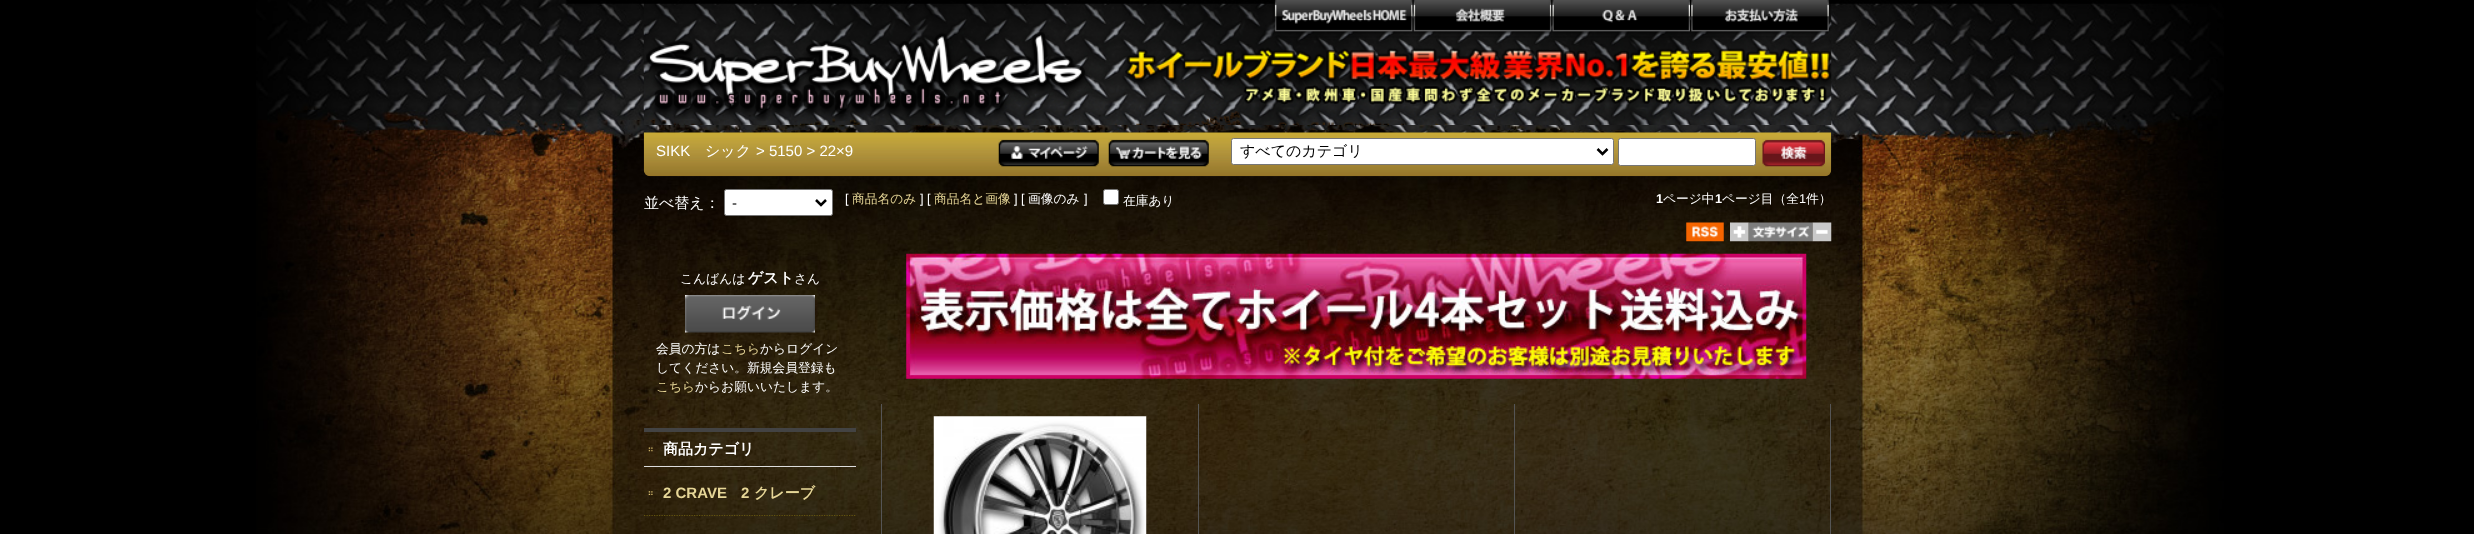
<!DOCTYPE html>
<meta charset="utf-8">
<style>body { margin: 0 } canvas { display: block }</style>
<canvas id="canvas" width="2474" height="534"></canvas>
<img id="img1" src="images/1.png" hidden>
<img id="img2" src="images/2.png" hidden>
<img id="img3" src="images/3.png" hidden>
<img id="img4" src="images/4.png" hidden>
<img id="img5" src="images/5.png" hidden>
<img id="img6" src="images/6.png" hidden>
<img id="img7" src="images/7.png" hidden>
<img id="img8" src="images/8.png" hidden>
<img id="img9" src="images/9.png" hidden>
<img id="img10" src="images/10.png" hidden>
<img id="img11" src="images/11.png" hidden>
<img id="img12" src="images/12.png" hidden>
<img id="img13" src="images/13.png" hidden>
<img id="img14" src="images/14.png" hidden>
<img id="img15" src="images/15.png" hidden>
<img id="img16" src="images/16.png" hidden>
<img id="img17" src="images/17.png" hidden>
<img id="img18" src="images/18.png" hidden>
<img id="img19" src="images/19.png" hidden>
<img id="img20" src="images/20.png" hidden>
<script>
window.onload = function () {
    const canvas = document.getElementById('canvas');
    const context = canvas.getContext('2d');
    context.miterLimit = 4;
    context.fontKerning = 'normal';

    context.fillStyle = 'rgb(0, 0, 0)';
    context.fillRect(0, 0, 2474, 534);
    context.drawImage(document.getElementById('img1'), 256, 0, 1968, 534);
    context.drawImage(document.getElementById('img2'), 643, 3, 1189, 122);
    context.drawImage(document.getElementById('img3'), 1272, 0, 141, 38);
    context.drawImage(document.getElementById('img4'), 1412, 0, 140, 38);
    context.drawImage(document.getElementById('img5'), 1551, 0, 139, 38);
    context.drawImage(document.getElementById('img6'), 1690, 0, 141, 38);
    context.drawImage(document.getElementById('img7'), 644, 32, 444, 89);
    context.drawImage(document.getElementById('img8'), 643, 132, 1189, 45);
    context.drawImage(document.getElementById('img9'), 998, 139, 101, 28);
    context.drawImage(document.getElementById('img10'), 1108, 139, 101, 28);
    context.fillStyle = 'rgb(255, 255, 255)';
    context.beginPath();
    context.roundRect(1231.5, 138.5, 382, 26, 2);
    context.fill();
    context.strokeStyle = 'rgb(118, 118, 118)';
    context.stroke();
    context.beginPath();
    context.moveTo(1597.5, 149);
    context.lineTo(1602.5, 154);
    context.lineTo(1607.5, 149);
    context.strokeStyle = 'rgb(0, 0, 0)';
    context.lineWidth = 2.5;
    context.stroke();
    context.beginPath();
    context.roundRect(1618.5, 138.5, 137, 27, 2);
    context.fill();
    context.strokeStyle = 'rgb(118, 118, 118)';
    context.lineWidth = 1;
    context.stroke();
    context.drawImage(document.getElementById('img11'), 1762, 139, 63, 28);
    context.beginPath();
    context.roundRect(724.5, 189.5, 108, 26, 2);
    context.fill();
    context.stroke();
    context.beginPath();
    context.moveTo(816, 200);
    context.lineTo(821, 205);
    context.lineTo(826, 200);
    context.strokeStyle = 'rgb(0, 0, 0)';
    context.lineWidth = 2.5;
    context.stroke();
    context.beginPath();
    context.roundRect(1103.5, 189.5, 15, 15, 2);
    context.fill();
    context.strokeStyle = 'rgb(118, 118, 118)';
    context.lineWidth = 1;
    context.stroke();
    context.drawImage(document.getElementById('img12'), 1686, 222, 38, 20);
    context.drawImage(document.getElementById('img13'), 1730, 222, 19, 20);
    context.drawImage(document.getElementById('img14'), 1748, 222, 65, 20);
    context.drawImage(document.getElementById('img15'), 1812, 222, 20, 20);
    context.drawImage(document.getElementById('img16'), 685, 295, 130, 38);
    context.drawImage(document.getElementById('img17'), 648, 447, 5, 5);
    context.fillStyle = 'rgb(67, 67, 67)';
    context.fillRect(644, 428, 212, 4);
    context.fillStyle = 'rgb(221, 221, 221)';
    context.fillRect(644, 466, 212, 1);
    context.beginPath();
    context.moveTo(644, 515.5);
    context.lineTo(856, 515.5);
    context.strokeStyle = 'rgb(100, 85, 15)';
    context.lineWidth = 1.2;
    context.setLineDash([1.25, 1.25]);
    context.stroke();
    context.drawImage(document.getElementById('img18'), 648, 491, 5, 4);
    context.drawImage(document.getElementById('img19'), 906, 253, 901, 126);
    context.fillStyle = 'rgb(85, 85, 85)';
    context.fillRect(881, 404, 1, 130);
    context.drawImage(document.getElementById('img20'), 933, 416, 214, 118);
    context.fillRect(1198, 404, 1, 130);
    context.fillRect(1830, 404, 1, 130);
    context.fillRect(1514, 404, 1, 130);
    context.font = '15px Liberation Sans';
    context.fillStyle = 'rgb(255, 255, 255)';
    context.fillText('SIKK', 656, 156);
    context.font = '500 15px WenQuanYi Zen Hei';
    context.fillText('シック', 705, 156);
    context.font = '15px Liberation Sans';
    context.fillText('> 5150 > 22×9', 756, 156);
    context.font = '500 15px WenQuanYi Zen Hei';
    context.fillStyle = 'rgb(0, 0, 0)';
    context.fillText('すべてのカテゴリ', 1240, 156);
    context.fillStyle = 'rgb(255, 255, 255)';
    context.fillText('並べ替え：', 644, 208);
    context.font = '15px Liberation Sans';
    context.fillStyle = 'rgb(0, 0, 0)';
    context.fillText('-', 732, 208);
    context.font = '12.75px Liberation Sans';
    context.fillStyle = 'rgb(255, 255, 255)';
    context.fillText('[', 845, 203);
    context.font = '500 12.75px WenQuanYi Zen Hei';
    context.fillStyle = 'rgb(230, 214, 151)';
    context.fillText('商品名のみ', 852, 203);
    context.font = '12.75px Liberation Sans';
    context.fillStyle = 'rgb(255, 255, 255)';
    context.fillText('] [', 920, 203);
    context.font = '500 12.75px WenQuanYi Zen Hei';
    context.fillStyle = 'rgb(230, 214, 151)';
    context.fillText('商品名と画像', 934, 203);
    context.font = '12.75px Liberation Sans';
    context.fillStyle = 'rgb(255, 255, 255)';
    context.fillText('] [', 1014, 203);
    context.font = '500 12.75px WenQuanYi Zen Hei';
    context.fillText('画像のみ', 1028, 203);
    context.font = '12.75px Liberation Sans';
    context.fillText(']', 1084, 203);
    context.font = '500 12.75px WenQuanYi Zen Hei';
    context.fillText('在庫あり', 1123, 205);
    context.font = 'bold 12.75px Liberation Sans';
    context.fillText('1', 1656, 203);
    context.font = '500 12.75px WenQuanYi Zen Hei';
    context.fillText('ページ中', 1663, 203);
    context.font = 'bold 12.75px Liberation Sans';
    context.fillText('1', 1715, 203);
    context.font = '500 12.75px WenQuanYi Zen Hei';
    context.fillText('ページ目（全', 1722, 203);
    context.font = '12.75px Liberation Sans';
    context.fillText('1', 1799, 203);
    context.font = '500 12.75px WenQuanYi Zen Hei';
    context.fillText('件）', 1806, 203);
    context.fillText('こんばんは', 680, 283);
    context.font = 'bold 15px WenQuanYi Zen Hei';
    context.fillText('ゲスト', 748, 283);
    context.font = '500 12.75px WenQuanYi Zen Hei';
    context.fillText('さん', 794, 283);
    context.fillText('会員の方は', 656, 353);
    context.fillStyle = 'rgb(230, 214, 151)';
    context.fillText('こちら', 721, 353);
    context.fillStyle = 'rgb(255, 255, 255)';
    context.fillText('からログイン', 760, 353);
    context.fillText('してください。新規会員登録も', 656, 372);
    context.fillStyle = 'rgb(230, 214, 151)';
    context.fillText('こちら', 656, 391);
    context.fillStyle = 'rgb(255, 255, 255)';
    context.fillText('からお願いいたします。', 695, 391);
    context.font = 'bold 15px WenQuanYi Zen Hei';
    context.fillText('商品カテゴリ', 663, 454);
    context.font = 'bold 15px Liberation Sans';
    context.fillStyle = 'rgb(230, 214, 151)';
    context.fillText('2 CRAVE', 663, 498);
    context.fillText('2', 741, 498);
    context.font = 'bold 15px WenQuanYi Zen Hei';
    context.fillText('クレーブ', 754, 498);
};
</script>
